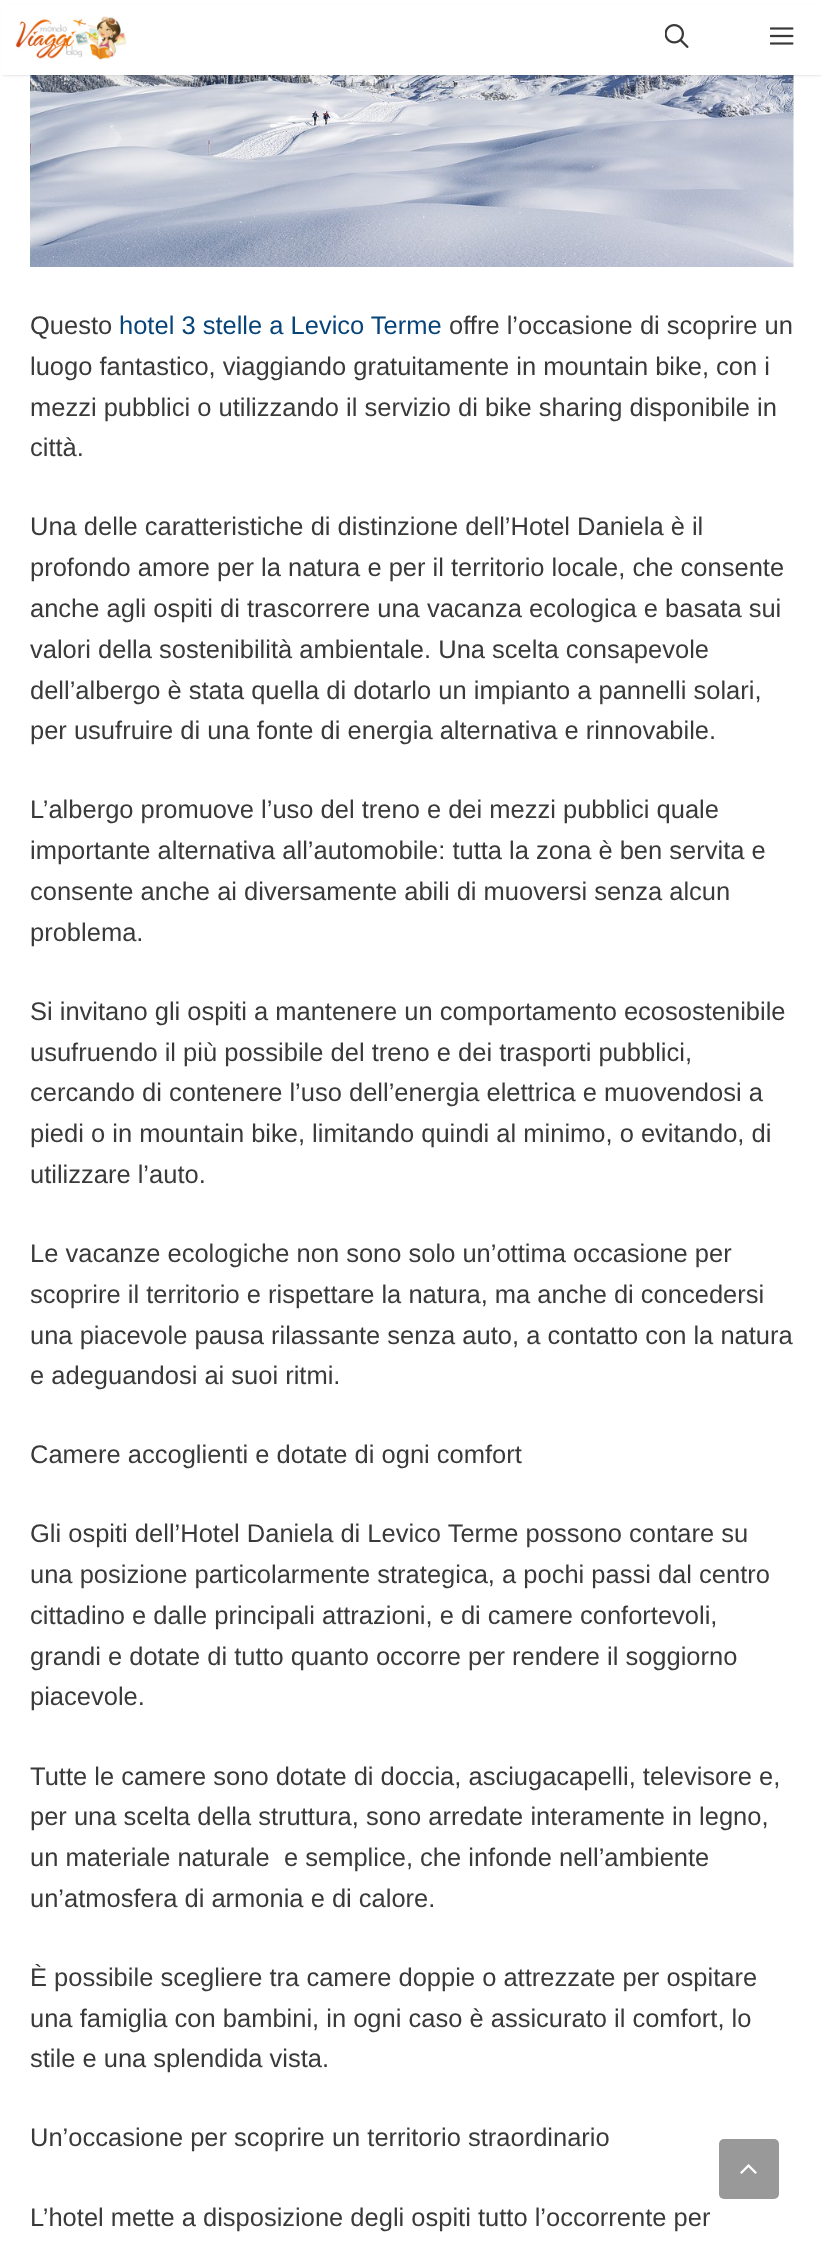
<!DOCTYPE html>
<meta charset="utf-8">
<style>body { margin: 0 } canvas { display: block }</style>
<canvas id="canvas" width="823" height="2243"></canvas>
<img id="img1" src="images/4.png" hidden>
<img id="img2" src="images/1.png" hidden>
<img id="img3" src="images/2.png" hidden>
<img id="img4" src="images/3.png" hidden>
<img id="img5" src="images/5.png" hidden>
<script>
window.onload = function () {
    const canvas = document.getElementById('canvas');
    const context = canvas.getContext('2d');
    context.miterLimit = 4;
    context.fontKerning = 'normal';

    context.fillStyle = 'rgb(255, 255, 255)';
    context.fillRect(0, 0, 823, 2243);
    context.drawImage(document.getElementById('img1'), 30, 75, 764, 192);
    context.fillStyle = 'rgba(0, 0, 0, 0.2)';
    context.filter = 'blur(1.5px)';
    context.beginPath();
    context.rect(3, 6, 818, 69);
    context.fill();
    context.filter = 'none';
    context.fillStyle = 'rgb(255, 255, 255)';
    context.fillRect(1, 4, 822, 71);
    context.drawImage(document.getElementById('img2'), 15, 16, 112, 44);
    context.drawImage(document.getElementById('img3'), 665, 24, 24, 24);
    context.drawImage(document.getElementById('img4'), 770, 27, 24, 18);
    context.fillStyle = 'rgb(153, 153, 153)';
    context.beginPath();
    context.roundRect(719, 2139, 60, 60, 5);
    context.fill();
    context.drawImage(document.getElementById('img5'), 740, 2164, 17, 10);
    context.font = '25.5px Liberation Sans';
    context.fillStyle = 'rgb(58, 58, 58)';
    context.fillText('Questo', 30, 334);
    context.fillStyle = 'rgb(6, 68, 122)';
    context.fillText('hotel 3 stelle a Levico Terme', 119, 334);
    context.fillStyle = 'rgb(58, 58, 58)';
    context.fillText('offre l’occasione di scoprire un', 449, 334);
    context.fillText('luogo fantastico, viaggiando gratuitamente in mountain bike, con i', 30, 375);
    context.fillText('mezzi pubblici o utilizzando il servizio di bike sharing disponibile in', 30, 416);
    context.fillText('città.', 30, 456);
    context.fillText('Una delle caratteristiche di distinzione dell’Hotel Daniela è il', 30, 535);
    context.fillText('profondo amore per la natura e per il territorio locale, che consente', 30, 576);
    context.fillText('anche agli ospiti di trascorrere una vacanza ecologica e basata sui', 30, 617);
    context.fillText('valori della sostenibilità ambientale. Una scelta consapevole', 30, 658);
    context.fillText('dell’albergo è stata quella di dotarlo un impianto a pannelli solari,', 30, 699);
    context.fillText('per usufruire di una fonte di energia alternativa e rinnovabile.', 30, 739);
    context.fillText('L’albergo promuove l’uso del treno e dei mezzi pubblici quale', 30, 818);
    context.fillText('importante alternativa all’automobile: tutta la zona è ben servita e', 30, 859);
    context.fillText('consente anche ai diversamente abili di muoversi senza alcun', 30, 900);
    context.fillText('problema.', 30, 941);
    context.fillText('Si invitano gli ospiti a mantenere un comportamento ecosostenibile', 30, 1020);
    context.fillText('usufruendo il più possibile del treno e dei trasporti pubblici,', 30, 1061);
    context.fillText('cercando di contenere l’uso dell’energia elettrica e muovendosi a', 30, 1101);
    context.fillText('piedi o in mountain bike, limitando quindi al minimo, o evitando, di', 30, 1142);
    context.fillText('utilizzare l’auto.', 30, 1183);
    context.fillText('Le vacanze ecologiche non sono solo un’ottima occasione per', 30, 1262);
    context.fillText('scoprire il territorio e rispettare la natura, ma anche di concedersi', 30, 1303);
    context.fillText('una piacevole pausa rilassante senza auto, a contatto con la natura', 30, 1344);
    context.fillText('e adeguandosi ai suoi ritmi.', 30, 1384);
    context.fillText('Camere accoglienti e dotate di ogni comfort', 30, 1463);
    context.fillText('Gli ospiti dell’Hotel Daniela di Levico Terme possono contare su', 30, 1542);
    context.fillText('una posizione particolarmente strategica, a pochi passi dal centro', 30, 1583);
    context.fillText('cittadino e dalle principali attrazioni, e di camere confortevoli,', 30, 1624);
    context.fillText('grandi e dotate di tutto quanto occorre per rendere il soggiorno', 30, 1665);
    context.fillText('piacevole.', 30, 1705);
    context.fillText('Tutte le camere sono dotate di doccia, asciugacapelli, televisore e,', 30, 1785);
    context.fillText('per una scelta della struttura, sono arredate interamente in legno,', 30, 1825);
    context.fillText('un materiale naturale', 30, 1866);
    context.fillText('e semplice, che infonde nell’ambiente', 284, 1866);
    context.fillText('un’atmosfera di armonia e di calore.', 30, 1907);
    context.fillText('È possibile scegliere tra camere doppie o attrezzate per ospitare', 30, 1986);
    context.fillText('una famiglia con bambini, in ogni caso è assicurato il comfort, lo', 30, 2027);
    context.fillText('stile e una splendida vista.', 30, 2067);
    context.fillText('Un’occasione per scoprire un territorio straordinario', 30, 2146);
    context.fillText('L’hotel mette a disposizione degli ospiti tutto l’occorrente per', 30, 2226);
};
</script>
